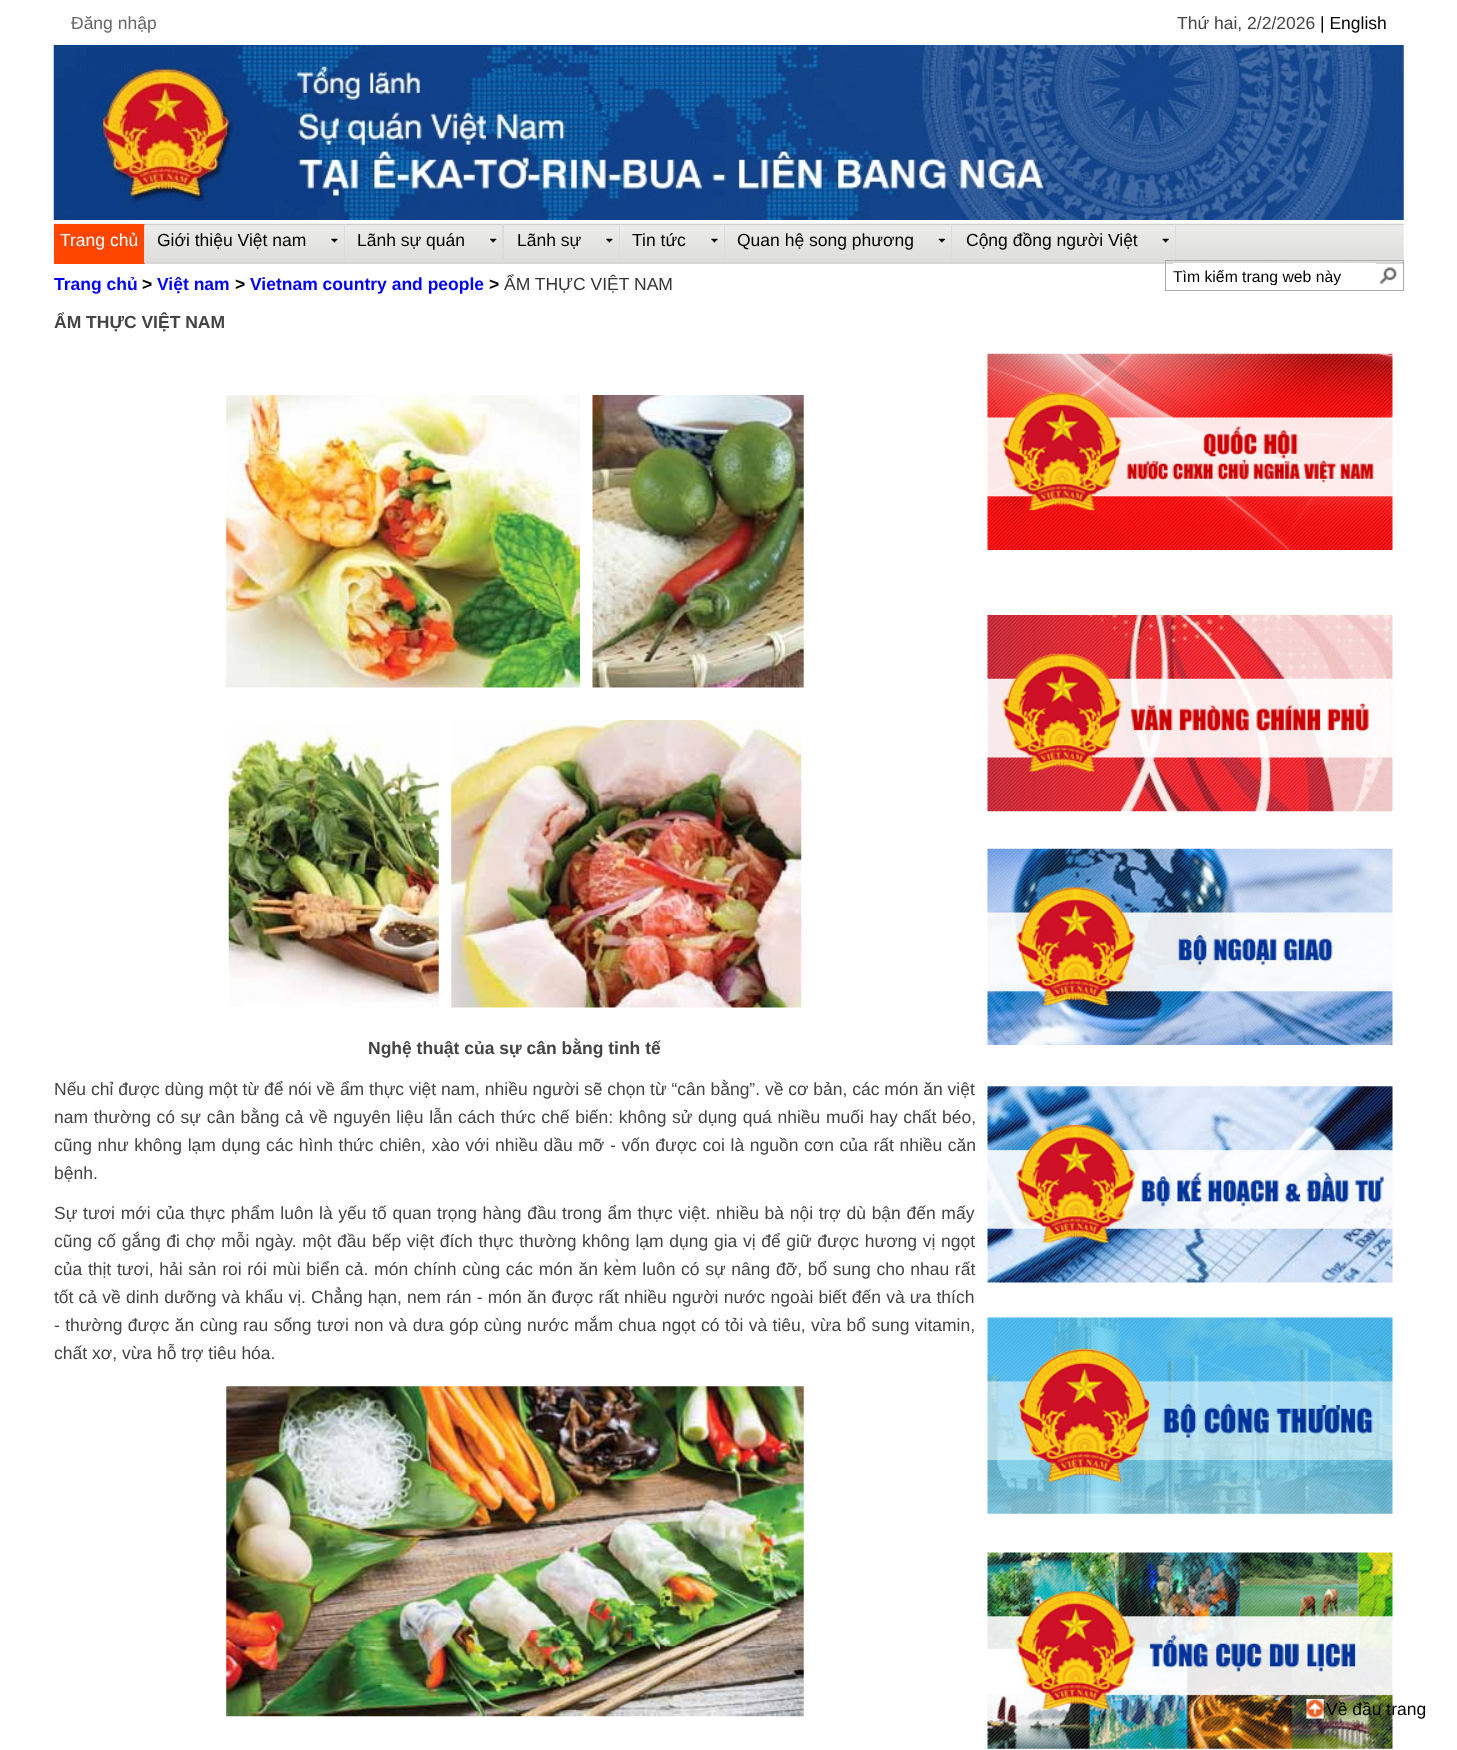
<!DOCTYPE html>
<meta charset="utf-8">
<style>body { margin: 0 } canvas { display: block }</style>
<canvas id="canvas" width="1457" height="1750"></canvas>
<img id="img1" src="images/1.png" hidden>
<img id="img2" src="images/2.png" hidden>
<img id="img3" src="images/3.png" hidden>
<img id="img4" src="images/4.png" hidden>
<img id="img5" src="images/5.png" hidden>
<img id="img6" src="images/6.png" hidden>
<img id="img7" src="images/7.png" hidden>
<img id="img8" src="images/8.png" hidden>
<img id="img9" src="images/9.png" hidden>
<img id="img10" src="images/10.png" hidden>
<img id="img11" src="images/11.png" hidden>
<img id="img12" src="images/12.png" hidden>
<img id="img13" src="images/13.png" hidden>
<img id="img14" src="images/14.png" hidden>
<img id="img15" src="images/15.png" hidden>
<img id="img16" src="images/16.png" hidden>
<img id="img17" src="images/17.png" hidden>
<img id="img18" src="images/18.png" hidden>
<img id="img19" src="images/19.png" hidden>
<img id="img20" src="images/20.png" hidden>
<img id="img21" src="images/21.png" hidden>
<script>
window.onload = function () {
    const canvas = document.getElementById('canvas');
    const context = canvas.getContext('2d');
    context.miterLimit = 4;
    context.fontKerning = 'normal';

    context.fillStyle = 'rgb(255, 255, 255)';
    context.fillRect(0, 0, 1457, 1750);
    context.drawImage(document.getElementById('img1'), 53, 45, 1351, 175);
    context.drawImage(document.getElementById('img2'), 53, 223, 1351, 41);
    context.fillStyle = 'rgb(255, 69, 0)';
    context.fillRect(54, 224, 91, 40);
    context.fillStyle = 'rgb(220, 220, 220)';
    context.beginPath();
    context.moveTo(145, 224);
    context.lineTo(145, 264);
    context.lineTo(144, 262);
    context.lineTo(144, 225);
    context.closePath();
    context.fill();
    context.beginPath();
    context.moveTo(345, 224);
    context.lineTo(345, 264);
    context.lineTo(344, 262);
    context.lineTo(344, 225);
    context.closePath();
    context.fill();
    context.drawImage(document.getElementById('img3'), 330, 237, 9, 7);
    context.beginPath();
    context.moveTo(504, 224);
    context.lineTo(504, 264);
    context.lineTo(502, 262);
    context.lineTo(502, 225);
    context.closePath();
    context.fill();
    context.drawImage(document.getElementById('img4'), 489, 237, 9, 7);
    context.beginPath();
    context.moveTo(620, 224);
    context.lineTo(620, 264);
    context.lineTo(619, 262);
    context.lineTo(619, 225);
    context.closePath();
    context.fill();
    context.drawImage(document.getElementById('img5'), 605, 237, 9, 7);
    context.beginPath();
    context.moveTo(725, 224);
    context.lineTo(725, 264);
    context.lineTo(724, 262);
    context.lineTo(724, 225);
    context.closePath();
    context.fill();
    context.drawImage(document.getElementById('img6'), 710, 237, 9, 7);
    context.beginPath();
    context.moveTo(952, 224);
    context.lineTo(952, 264);
    context.lineTo(951, 262);
    context.lineTo(951, 225);
    context.closePath();
    context.fill();
    context.drawImage(document.getElementById('img7'), 937, 237, 9, 7);
    context.beginPath();
    context.moveTo(1176, 224);
    context.lineTo(1176, 264);
    context.lineTo(1175, 262);
    context.lineTo(1175, 225);
    context.closePath();
    context.fill();
    context.drawImage(document.getElementById('img8'), 1161, 237, 9, 7);
    context.strokeStyle = 'rgb(171, 171, 171)';
    context.strokeRect(1165.5, 260.5, 238, 30);
    context.fillStyle = 'rgb(255, 255, 255)';
    context.fillRect(1173, 263, 203, 1);
    context.drawImage(document.getElementById('img9'), 1379, 267, 18, 18);
    context.drawImage(document.getElementById('img10'), 226, 395, 354, 293);
    context.drawImage(document.getElementById('img11'), 592, 395, 212, 293);
    context.drawImage(document.getElementById('img12'), 228, 724, 211, 283);
    context.drawImage(document.getElementById('img13'), 451, 720, 351, 288);
    context.drawImage(document.getElementById('img14'), 226, 1386, 578, 331);
    context.drawImage(document.getElementById('img15'), 987, 353, 406, 197);
    context.drawImage(document.getElementById('img16'), 987, 615, 406, 197);
    context.drawImage(document.getElementById('img17'), 987, 848, 406, 197);
    context.drawImage(document.getElementById('img18'), 987, 1086, 406, 197);
    context.drawImage(document.getElementById('img19'), 987, 1317, 406, 197);
    context.drawImage(document.getElementById('img20'), 987, 1552, 406, 197);
    context.drawImage(document.getElementById('img21'), 1306, 1698, 18, 21);
    context.font = '17.5px Liberation Sans';
    context.fillStyle = 'rgb(102, 102, 102)';
    context.fillText('Đăng nhập', 71, 29);
    context.fillStyle = 'rgb(68, 68, 68)';
    context.fillText('Thứ hai, 2/2/2026', 1177, 29);
    context.fillStyle = 'rgb(0, 0, 0)';
    context.fillText('| English', 1320, 29);
    context.fillStyle = 'rgb(255, 255, 255)';
    context.fillText('Trang chủ', 60, 246);
    context.fillStyle = 'rgb(0, 0, 0)';
    context.fillText('Giới thiệu Việt nam', 157, 246);
    context.fillText('Lãnh sự quán', 357, 246);
    context.fillText('Lãnh sự', 517, 246);
    context.fillText('Tin tức', 632, 246);
    context.fillText('Quan hệ song phương', 737, 246);
    context.fillText('Cộng đồng người Việt', 966, 246);
    context.font = 'bold 17.5px Liberation Sans';
    context.fillStyle = 'rgb(0, 0, 255)';
    context.fillText('Trang chủ', 54, 290);
    context.fillStyle = 'rgb(0, 0, 0)';
    context.fillText('>', 142, 290);
    context.fillStyle = 'rgb(0, 0, 255)';
    context.fillText('Việt nam', 157, 290);
    context.fillStyle = 'rgb(0, 0, 0)';
    context.fillText('>', 235, 290);
    context.fillStyle = 'rgb(0, 0, 255)';
    context.fillText('Vietnam country and people', 250, 290);
    context.fillStyle = 'rgb(0, 0, 0)';
    context.fillText('>', 489, 290);
    context.font = '17.5px Liberation Sans';
    context.fillStyle = 'rgb(52, 52, 53)';
    context.fillText('ẨM THỰC VIỆT NAM', 504, 290);
    context.save();
    context.beginPath();
    context.rect(1173, 268, 202, 17);
    context.clip();
    context.font = '15.75px Liberation Sans';
    context.fillStyle = 'rgb(0, 0, 0)';
    context.fillText('Tìm kiếm trang web này', 1173, 282);
    context.restore();
    context.font = 'bold 17.5px Liberation Sans';
    context.fillStyle = 'rgb(68, 68, 68)';
    context.fillText('ẨM THỰC VIỆT NAM', 54, 328);
    context.fillText('Nghệ thuật của sự cân bằng tinh tế', 368, 1054);
    context.font = '17.5px Liberation Sans';
    context.fillText('Nếu chỉ được dùng một từ để nói về ẩm thực việt nam, nhiều người sẽ chọn từ “cân bằng”. về cơ bản, các món ăn việt', 54, 1095);
    context.wordSpacing = '0.75px';
    context.fillText('nam thường có sự cân bằng cả về nguyên liệu lẫn cách thức chế biến: không sử dụng quá nhiều muối hay chất béo,', 54, 1123);
    context.fillText('cũng như không lạm dụng các hình thức chiên, xào với nhiều dầu mỡ - vốn được coi là nguồn cơn của rất nhiều căn', 54, 1151);
    context.wordSpacing = '0px';
    context.fillText('bệnh.', 54, 1179);
    context.wordSpacing = '0.8px';
    context.fillText('Sự tươi mới của thực phẩm luôn là yếu tố quan trọng hàng đầu trong ẩm thực việt. nhiều bà nội trợ dù bận đến mấy', 54, 1219);
    context.fillText('cũng cố gắng đi chợ mỗi ngày. một đầu bếp việt đích thực thường không lạm dụng gia vị để giữ được hương vị ngọt', 54, 1247);
    context.fillText('của thịt tươi, hải sản roi rói mùi biển cả. món chính cùng các món ăn kèm luôn có sự nâng đỡ, bổ sung cho nhau rất', 54, 1275);
    context.wordSpacing = '0.3px';
    context.fillText('tốt cả về dinh dưỡng và khẩu vị. Chẳng hạn, nem rán - món ăn được rất nhiều người nước ngoài biết đến và ưa thích', 54, 1303);
    context.wordSpacing = '0.5px';
    context.fillText('- thường được ăn cùng rau sống tươi non và dưa góp cùng nước mắm chua ngọt có tỏi và tiêu, vừa bổ sung vitamin,', 54, 1331);
    context.wordSpacing = '0px';
    context.fillText('chất xơ, vừa hỗ trợ tiêu hóa.', 54, 1359);
    context.fillStyle = 'rgb(0, 0, 0)';
    context.fillText('Về đầu trang', 1326, 1715);
};
</script>
